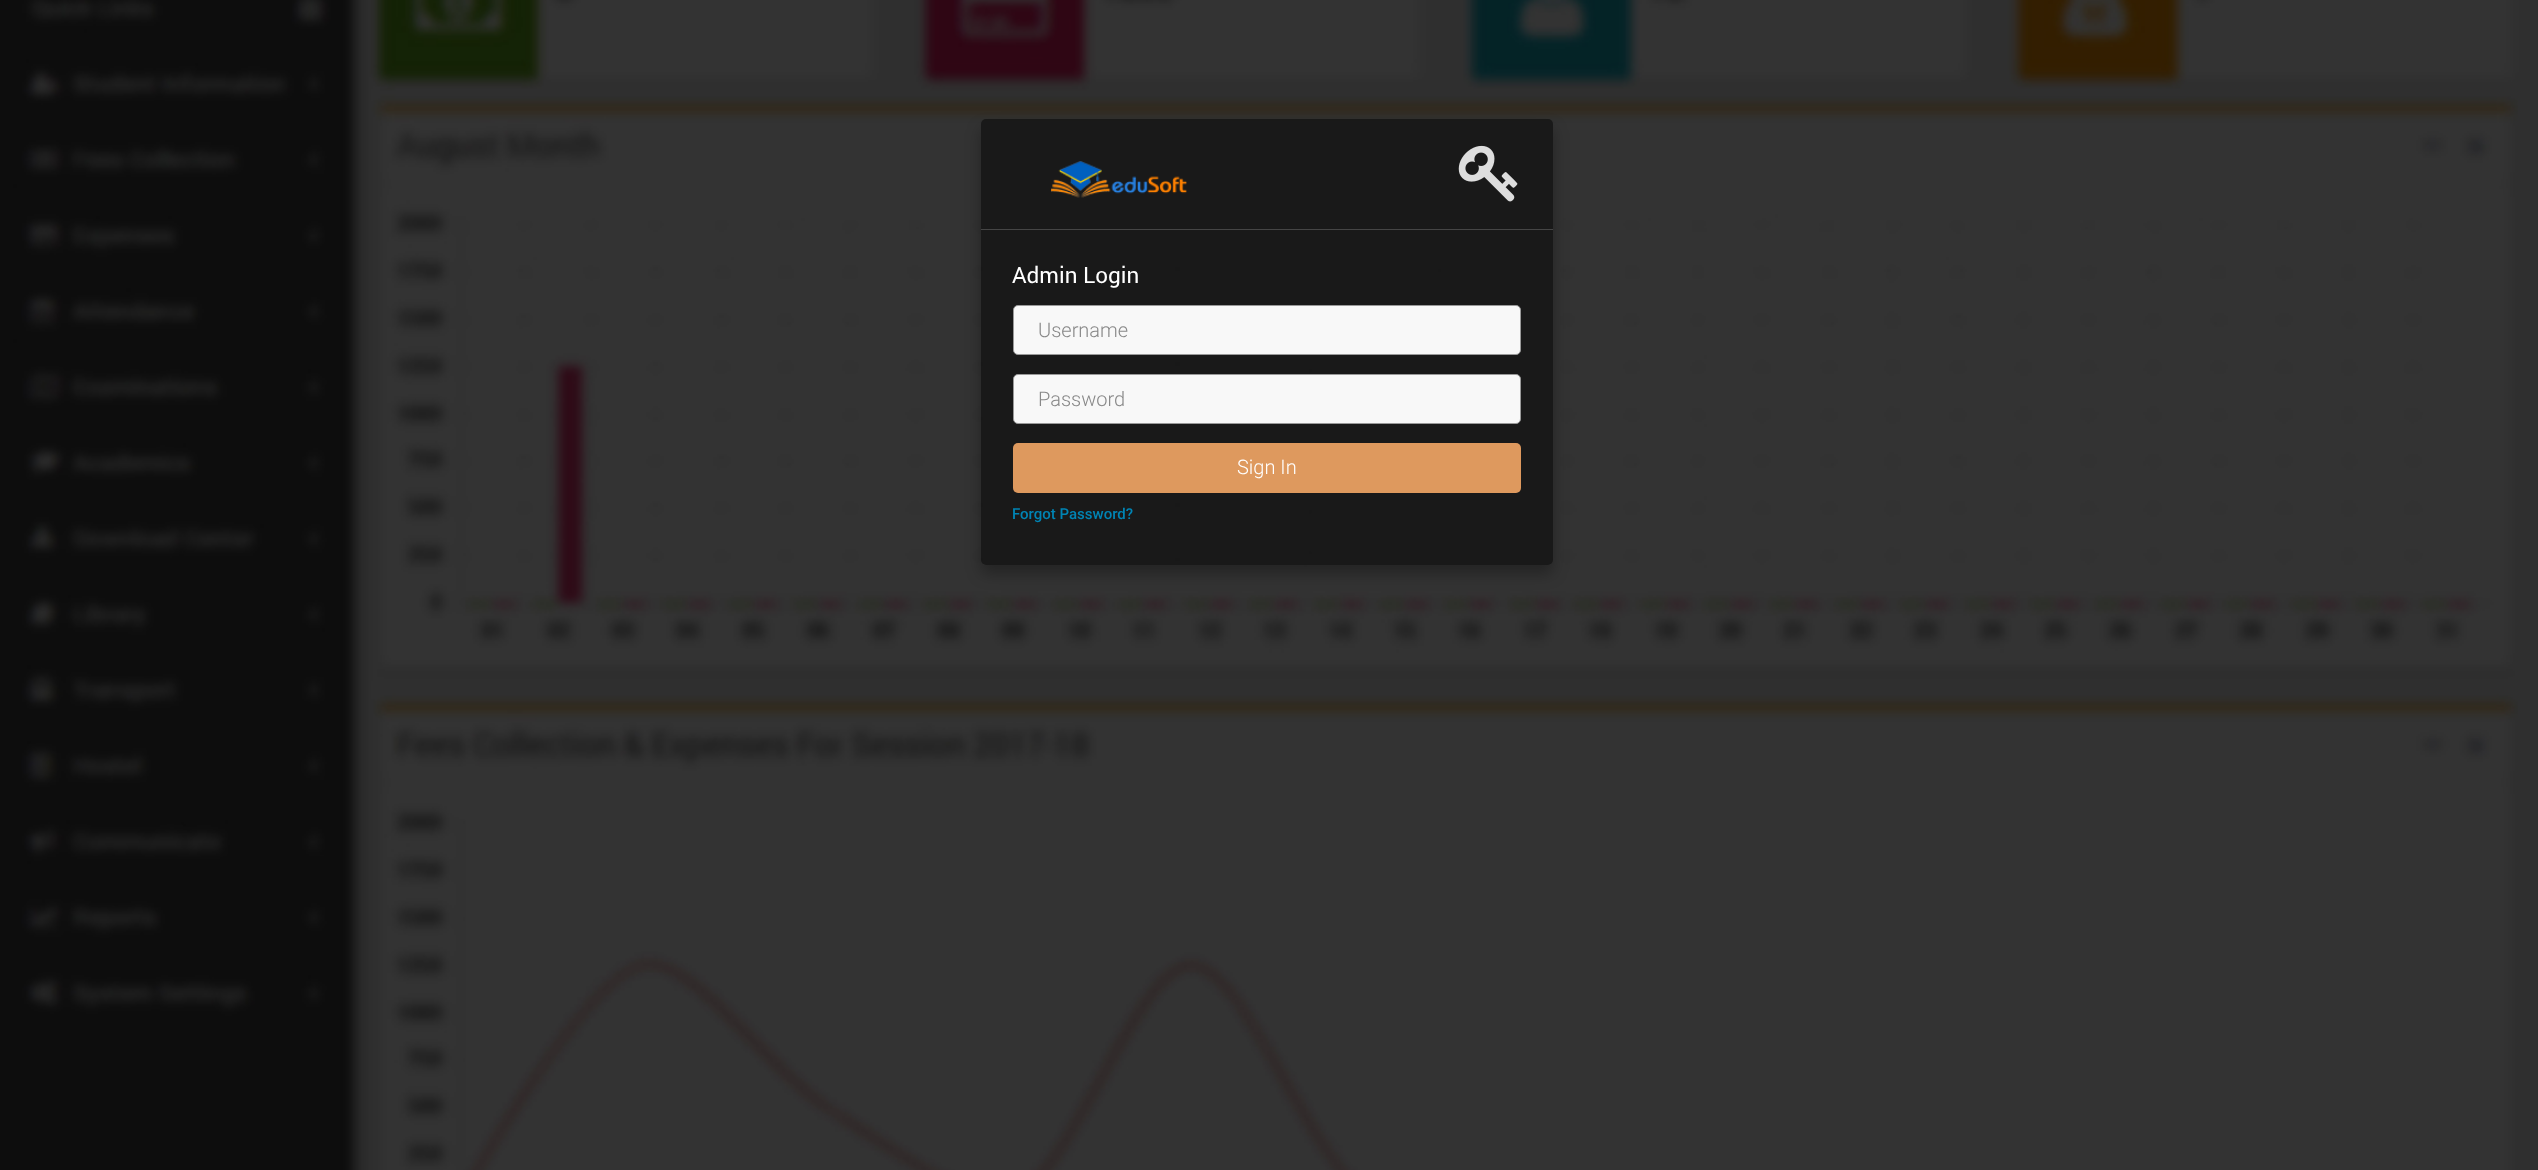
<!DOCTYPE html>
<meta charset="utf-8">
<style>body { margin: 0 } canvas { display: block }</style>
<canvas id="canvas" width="2538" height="1170"></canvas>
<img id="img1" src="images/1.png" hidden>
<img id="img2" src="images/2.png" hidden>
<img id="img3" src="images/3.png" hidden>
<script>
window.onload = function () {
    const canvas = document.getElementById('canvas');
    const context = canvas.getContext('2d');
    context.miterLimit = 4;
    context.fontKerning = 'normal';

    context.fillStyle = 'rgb(255, 255, 255)';
    context.fillRect(0, 0, 2538, 1170);
    context.drawImage(document.getElementById('img1'), 0, 0, 2538, 1170);
    context.save();
    context.beginPath();
    context.moveTo(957, 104);
    context.lineTo(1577, 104);
    context.lineTo(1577, 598);
    context.lineTo(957, 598);
    context.closePath();
    context.moveTo(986, 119);
    context.lineTo(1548, 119);
    context.bezierCurveTo(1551, 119, 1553, 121, 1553, 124);
    context.lineTo(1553, 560);
    context.bezierCurveTo(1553, 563, 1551, 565, 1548, 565);
    context.lineTo(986, 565);
    context.bezierCurveTo(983, 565, 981, 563, 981, 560);
    context.lineTo(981, 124);
    context.bezierCurveTo(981, 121, 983, 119, 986, 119);
    context.closePath();
    context.clip('evenodd');
    context.fillStyle = 'rgba(0, 0, 0, 0.29)';
    context.filter = 'blur(7.5px)';
    context.beginPath();
    context.roundRect(981, 128, 572, 446, 5);
    context.fill();
    context.filter = 'none';
    context.restore();
    context.fillStyle = 'rgba(0, 0, 0, 0.5)';
    context.beginPath();
    context.roundRect(981, 119, 572, 446, 5);
    context.fill();
    context.fillStyle = 'rgb(69, 69, 69)';
    context.fillRect(981, 229, 572, 1);
    context.drawImage(document.getElementById('img2'), 1051, 161, 136, 37);
    context.drawImage(document.getElementById('img3'), 1458, 145, 60, 57);
    context.fillStyle = 'rgb(248, 248, 248)';
    context.beginPath();
    context.roundRect(1013.5, 305.5, 507, 49, 4.5);
    context.fill();
    context.strokeStyle = 'rgb(153, 153, 153)';
    context.stroke();
    context.beginPath();
    context.roundRect(1013.5, 374.5, 507, 49, 4.5);
    context.fill();
    context.stroke();
    context.fillStyle = 'rgb(222, 153, 94)';
    context.beginPath();
    context.roundRect(1013, 443, 508, 50, 5);
    context.fill();
    context.font = '22.5px Roboto';
    context.fillStyle = 'rgb(255, 255, 255)';
    context.fillText('Admin Login', 1012, 283);
    context.font = '300 20px Roboto';
    context.fillStyle = 'rgb(136, 136, 136)';
    context.fillText('Username', 1038, 337);
    context.fillText('Password', 1038, 406);
    context.fillStyle = 'rgb(255, 255, 255)';
    context.fillText('Sign In', 1237, 474);
    context.font = '500 15px Roboto';
    context.fillStyle = 'rgb(0, 132, 180)';
    context.fillText('Forgot Password?', 1012, 519);
};
</script>
